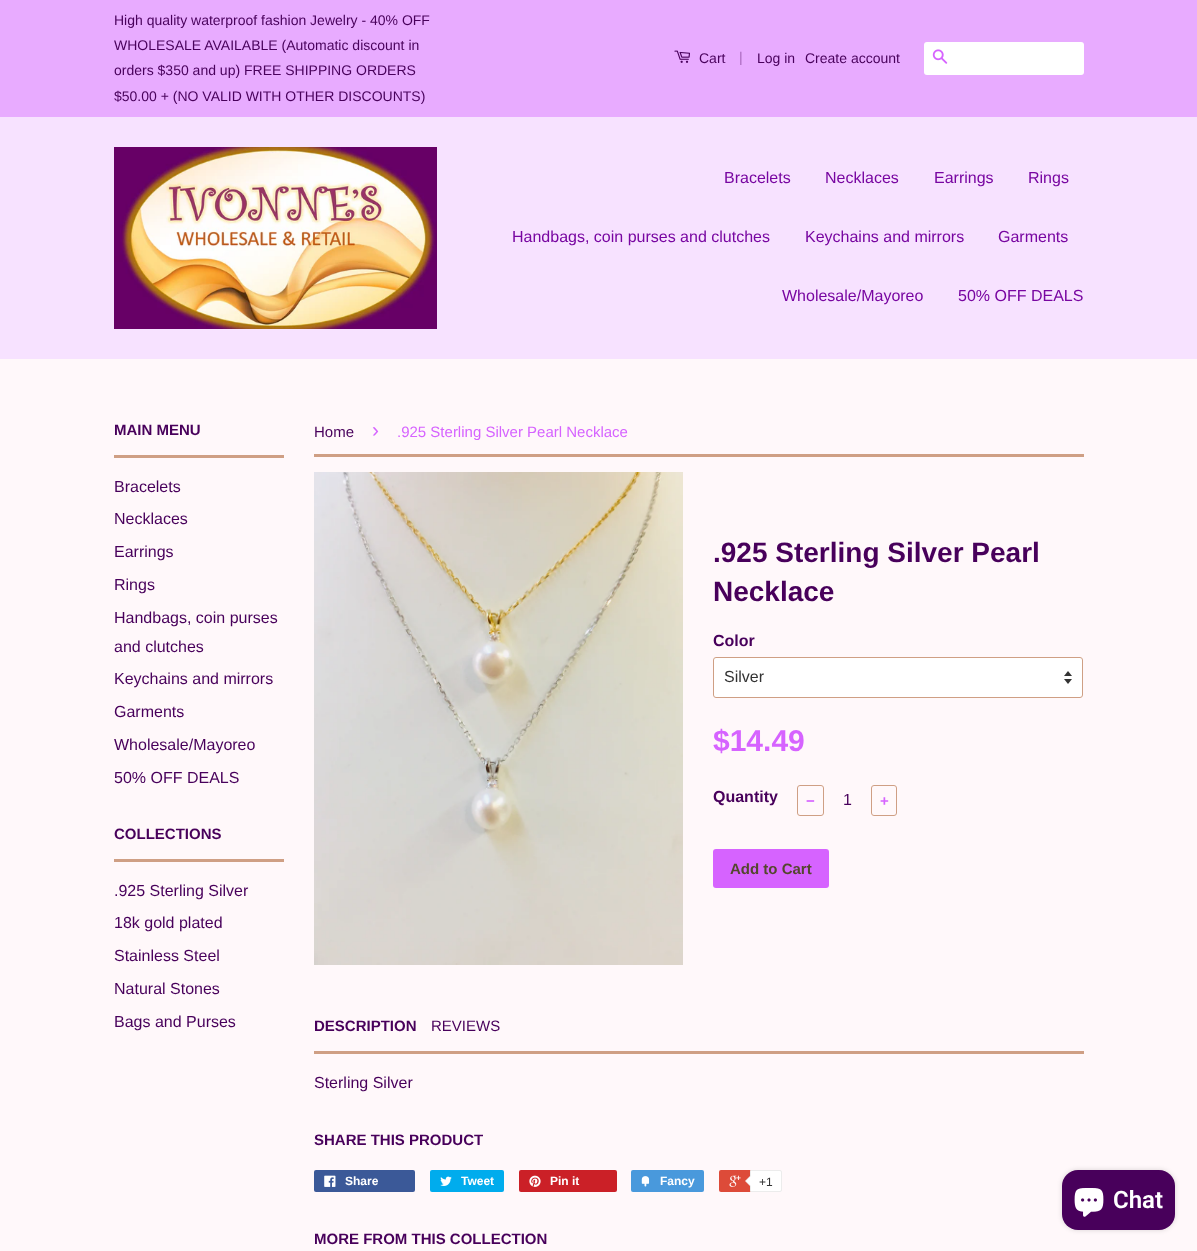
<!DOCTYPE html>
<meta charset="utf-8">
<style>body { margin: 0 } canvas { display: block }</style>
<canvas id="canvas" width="1197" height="1251"></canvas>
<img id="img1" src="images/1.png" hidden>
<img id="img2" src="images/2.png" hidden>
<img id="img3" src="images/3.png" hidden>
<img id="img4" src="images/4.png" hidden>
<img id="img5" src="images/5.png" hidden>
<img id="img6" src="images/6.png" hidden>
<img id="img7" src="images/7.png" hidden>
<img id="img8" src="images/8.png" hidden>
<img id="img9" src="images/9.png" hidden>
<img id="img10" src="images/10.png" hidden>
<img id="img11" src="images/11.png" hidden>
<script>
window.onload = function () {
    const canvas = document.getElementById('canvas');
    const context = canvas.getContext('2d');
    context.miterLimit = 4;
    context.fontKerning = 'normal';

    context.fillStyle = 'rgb(255, 248, 250)';
    context.fillRect(0, 0, 1197, 1251);
    context.fillStyle = 'rgb(232, 171, 255)';
    context.fillRect(0, 0, 1197, 117);
    context.drawImage(document.getElementById('img1'), 674, 50, 16, 13);
    context.fillStyle = 'rgb(255, 255, 255)';
    context.beginPath();
    context.roundRect(924, 42, 160, 33, 3);
    context.fill();
    context.drawImage(document.getElementById('img2'), 932, 49, 16, 15);
    context.fillStyle = 'rgb(247, 226, 255)';
    context.fillRect(0, 117, 1197, 242);
    context.drawImage(document.getElementById('img3'), 114, 147, 323, 182);
    context.fillStyle = 'rgb(207, 159, 132)';
    context.fillRect(114, 455, 170, 3);
    context.fillRect(114, 859, 170, 3);
    context.fillRect(314, 454, 770, 3);
    context.drawImage(document.getElementById('img4'), 314, 472, 369, 493);
    context.fillStyle = 'rgb(255, 255, 255)';
    context.beginPath();
    context.roundRect(713, 657, 370, 41, 3);
    context.fill();
    context.drawImage(document.getElementById('img5'), 1064, 671, 8, 13);
    context.beginPath();
    context.roundRect(713.5, 657.5, 369, 40, 2.5);
    context.strokeStyle = 'rgb(207, 159, 132)';
    context.stroke();
    context.beginPath();
    context.roundRect(797.5, 785.5, 26, 30, 2.5);
    context.stroke();
    context.beginPath();
    context.roundRect(871.5, 785.5, 25, 30, 2.5);
    context.stroke();
    context.fillStyle = 'rgb(214, 99, 255)';
    context.beginPath();
    context.roundRect(713, 849, 116, 39, 3);
    context.fill();
    context.fillStyle = 'rgb(207, 159, 132)';
    context.fillRect(314, 1051, 770, 3);
    context.fillStyle = 'rgb(59, 89, 152)';
    context.beginPath();
    context.roundRect(314, 1170, 101, 22, 2);
    context.fill();
    context.drawImage(document.getElementById('img6'), 324, 1175, 12, 12);
    context.fillStyle = 'rgb(0, 172, 237)';
    context.beginPath();
    context.roundRect(430, 1170, 74, 22, 2);
    context.fill();
    context.drawImage(document.getElementById('img7'), 440, 1176, 12, 10);
    context.fillStyle = 'rgb(203, 32, 39)';
    context.beginPath();
    context.roundRect(519, 1170, 98, 22, 2);
    context.fill();
    context.drawImage(document.getElementById('img8'), 529, 1175, 12, 12);
    context.fillStyle = 'rgb(73, 153, 220)';
    context.beginPath();
    context.roundRect(631, 1170, 73, 22, 2);
    context.fill();
    context.drawImage(document.getElementById('img9'), 641, 1176, 9, 11);
    context.fillStyle = 'rgb(221, 75, 57)';
    context.beginPath();
    context.roundRect(719, 1170, 61, 22, 2);
    context.fill();
    context.drawImage(document.getElementById('img10'), 729, 1175, 12, 12);
    context.fillStyle = 'rgb(255, 255, 255)';
    context.beginPath();
    context.roundRect(750.5, 1170.5, 31, 21, [0, 1.5, 1.5, 0]);
    context.fill();
    context.strokeStyle = 'rgb(236, 236, 236)';
    context.stroke();
    context.fillStyle = 'rgb(236, 236, 236)';
    context.beginPath();
    context.moveTo(751, 1175);
    context.lineTo(751, 1187);
    context.lineTo(745, 1181);
    context.closePath();
    context.fill();
    context.fillStyle = 'rgb(255, 255, 255)';
    context.beginPath();
    context.moveTo(752, 1175);
    context.lineTo(752, 1187);
    context.lineTo(746, 1181);
    context.closePath();
    context.fill();
    context.fillStyle = 'rgba(0, 0, 0, 0.15)';
    context.filter = 'blur(2.5px)';
    context.beginPath();
    context.roundRect(1062, 1170, 113, 60, 16);
    context.fill();
    context.filter = 'none';
    context.fillStyle = 'rgb(72, 0, 91)';
    context.beginPath();
    context.roundRect(1062, 1170, 113, 60, 16);
    context.fill();
    context.drawImage(document.getElementById('img11'), 1074, 1188, 30, 29);
    context.font = '14px Liberation Sans';
    context.fillText('High quality waterproof fashion Jewelry - 40% OFF', 114, 25);
    context.fillText('WHOLESALE AVAILABLE (Automatic discount in', 114, 50);
    context.fillText('orders $350 and up) FREE SHIPPING ORDERS', 114, 75);
    context.fillText('$50.00 + (NO VALID WITH OTHER DISCOUNTS)', 114, 101);
    context.fillText('Cart', 699, 63);
    context.fillStyle = 'rgb(168, 103, 189)';
    context.fillText('|', 739, 62);
    context.fillStyle = 'rgb(72, 0, 91)';
    context.fillText('Log in', 757, 63);
    context.fillText('Create account', 805, 63);
    context.font = '16px Liberation Sans';
    context.fillStyle = 'rgb(120, 6, 161)';
    context.fillText('Bracelets', 724, 183);
    context.fillText('Necklaces', 825, 183);
    context.fillText('Earrings', 934, 183);
    context.fillText('Rings', 1028, 183);
    context.fillText('Handbags, coin purses and clutches', 512, 242);
    context.fillText('Keychains and mirrors', 805, 242);
    context.fillText('Garments', 998, 242);
    context.fillText('Wholesale/Mayoreo', 782, 301);
    context.fillText('50% OFF DEALS', 958, 301);
    context.font = 'bold 15px Liberation Sans';
    context.fillStyle = 'rgb(72, 0, 91)';
    context.fillText('MAIN MENU', 114, 435);
    context.font = '16px Liberation Sans';
    context.fillText('Bracelets', 114, 492);
    context.fillText('Necklaces', 114, 524);
    context.fillText('Earrings', 114, 557);
    context.fillText('Rings', 114, 590);
    context.fillText('Handbags, coin purses', 114, 623);
    context.fillText('and clutches', 114, 652);
    context.fillText('Keychains and mirrors', 114, 684);
    context.fillText('Garments', 114, 717);
    context.fillText('Wholesale/Mayoreo', 114, 750);
    context.fillText('50% OFF DEALS', 114, 783);
    context.font = 'bold 15px Liberation Sans';
    context.fillText('COLLECTIONS', 114, 839);
    context.font = '16px Liberation Sans';
    context.fillText('.925 Sterling Silver', 114, 896);
    context.fillText('18k gold plated', 114, 928);
    context.fillText('Stainless Steel', 114, 961);
    context.fillText('Natural Stones', 114, 994);
    context.fillText('Bags and Purses', 114, 1027);
    context.font = '15px Liberation Sans';
    context.fillText('Home', 314, 437);
    context.font = '21px Liberation Sans';
    context.fillStyle = 'rgb(214, 99, 255)';
    context.fillText('›', 372, 437);
    context.font = '15px Liberation Sans';
    context.fillText('.925 Sterling Silver Pearl Necklace', 397, 437);
    context.font = 'bold 28px Liberation Sans';
    context.fillStyle = 'rgb(72, 0, 91)';
    context.fillText('.925 Sterling Silver Pearl', 713, 562);
    context.fillText('Necklace', 713, 601);
    context.font = 'bold 16px Liberation Sans';
    context.fillText('Color', 713, 646);
    context.font = '16px Liberation Sans';
    context.fillStyle = 'rgb(51, 51, 51)';
    context.fillText('Silver', 724, 682);
    context.font = 'bold 30px Liberation Sans';
    context.fillStyle = 'rgb(214, 99, 255)';
    context.fillText('$14.49', 713, 751);
    context.font = 'bold 16px Liberation Sans';
    context.fillStyle = 'rgb(72, 0, 91)';
    context.fillText('Quantity', 713, 802);
    context.font = 'bold 15px Liberation Sans';
    context.fillStyle = 'rgb(214, 99, 255)';
    context.fillText('−', 806, 806);
    context.font = '16px Liberation Sans';
    context.fillStyle = 'rgb(72, 0, 91)';
    context.fillText('1', 843, 805);
    context.font = 'bold 15px Liberation Sans';
    context.fillStyle = 'rgb(214, 99, 255)';
    context.fillText('+', 880, 806);
    context.fillStyle = 'rgb(84, 71, 45)';
    context.fillText('Add to Cart', 730, 874);
    context.fillStyle = 'rgb(72, 0, 91)';
    context.fillText('DESCRIPTION', 314, 1031);
    context.font = '15px Liberation Sans';
    context.fillText('REVIEWS', 431, 1031);
    context.font = '16px Liberation Sans';
    context.fillText('Sterling Silver', 314, 1088);
    context.font = 'bold 15px Liberation Sans';
    context.fillText('SHARE THIS PRODUCT', 314, 1145);
    context.font = 'bold 12px Liberation Sans';
    context.fillStyle = 'rgb(255, 255, 255)';
    context.fillText('Share', 345, 1185);
    context.fillText('Tweet', 461, 1185);
    context.fillText('Pin it', 550, 1185);
    context.fillText('Fancy', 660, 1185);
    context.font = '12px Liberation Sans';
    context.fillStyle = 'rgb(51, 51, 51)';
    context.fillText('+1', 759, 1186);
    context.font = 'bold 15px Liberation Sans';
    context.fillStyle = 'rgb(72, 0, 91)';
    context.fillText('MORE FROM THIS COLLECTION', 314, 1244);
    context.font = '600 24px Roboto';
    context.fillStyle = 'rgb(255, 255, 255)';
    context.fillText('Chat', 1113, 1208);
};
</script>
